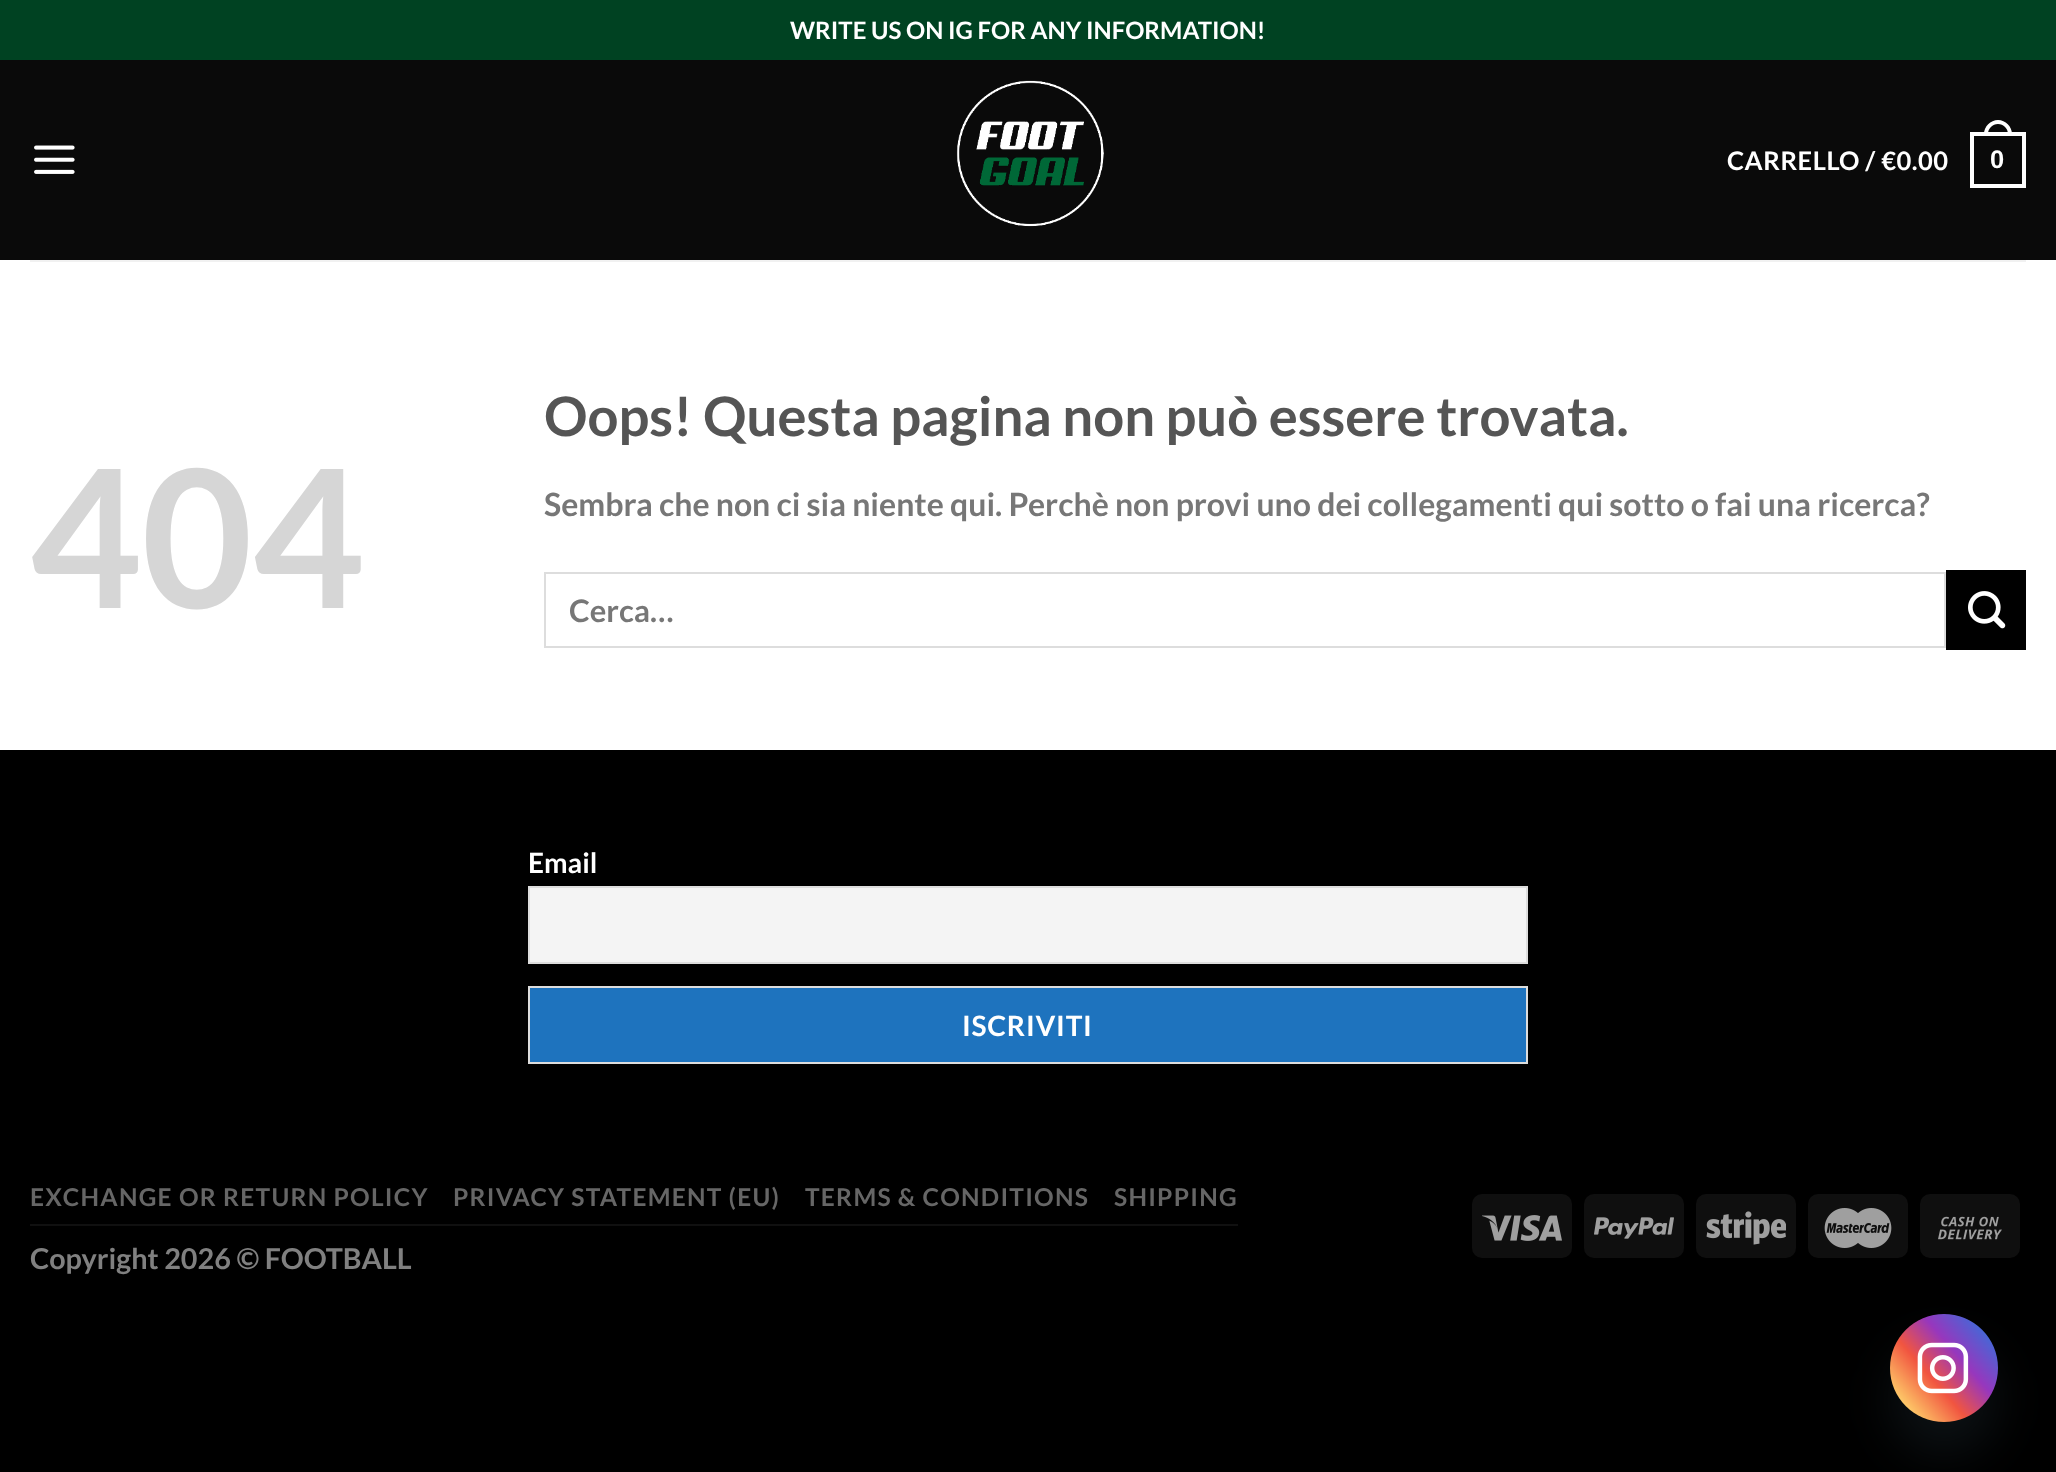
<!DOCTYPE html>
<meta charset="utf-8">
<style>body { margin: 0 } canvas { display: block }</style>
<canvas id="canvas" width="2056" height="1472"></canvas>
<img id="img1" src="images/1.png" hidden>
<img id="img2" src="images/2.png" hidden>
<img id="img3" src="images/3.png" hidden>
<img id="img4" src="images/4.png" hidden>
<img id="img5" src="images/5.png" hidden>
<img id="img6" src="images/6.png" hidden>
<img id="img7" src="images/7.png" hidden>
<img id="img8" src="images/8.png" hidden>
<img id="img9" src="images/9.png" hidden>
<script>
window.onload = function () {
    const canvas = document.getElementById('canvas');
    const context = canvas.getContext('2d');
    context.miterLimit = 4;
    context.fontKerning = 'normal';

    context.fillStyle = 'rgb(0, 0, 0)';
    context.fillRect(0, 0, 2056, 1472);
    context.fillStyle = 'rgb(255, 255, 255)';
    context.fillRect(0, 260, 2056, 490);
    context.fillStyle = 'rgb(0, 66, 34)';
    context.fillRect(0, 0, 2056, 60);
    context.fillStyle = 'rgb(10, 10, 10)';
    context.fillRect(0, 60, 2056, 200);
    context.drawImage(document.getElementById('img1'), 34, 145, 41, 29);
    context.drawImage(document.getElementById('img2'), 956, 80, 148, 147);
    context.strokeStyle = 'rgb(255, 255, 255)';
    context.lineWidth = 4;
    context.strokeRect(1972, 134, 52, 52);
    context.fillStyle = 'rgb(255, 255, 255)';
    context.beginPath();
    context.moveTo(1998, 120);
    context.bezierCurveTo(2005.5, 120, 2012, 126.5, 2012, 134);
    context.lineTo(2012, 136);
    context.lineTo(1984, 136);
    context.lineTo(1984, 134);
    context.bezierCurveTo(1984, 126.5, 1990.5, 120, 1998, 120);
    context.closePath();
    context.moveTo(1998, 124);
    context.bezierCurveTo(2003.5, 124, 2008, 128.5, 2008, 134);
    context.lineTo(2008, 136);
    context.lineTo(1988, 136);
    context.lineTo(1988, 134);
    context.bezierCurveTo(1988, 128.5, 1992.5, 124, 1998, 124);
    context.closePath();
    context.fill('evenodd');
    context.fillStyle = 'rgb(241, 241, 241)';
    context.fillRect(30, 260, 1996, 2);
    context.strokeStyle = 'rgb(221, 221, 221)';
    context.lineWidth = 2;
    context.strokeRect(545, 573, 1400, 74);
    context.fillStyle = 'rgb(0, 0, 0)';
    context.fillRect(1946, 570, 80, 80);
    context.drawImage(document.getElementById('img3'), 1968, 591, 38, 38);
    context.fillStyle = 'rgb(244, 244, 244)';
    context.beginPath();
    context.rect(529, 887, 998, 76);
    context.fill();
    context.stroke();
    context.fillStyle = 'rgb(30, 115, 190)';
    context.beginPath();
    context.rect(529, 987, 998, 76);
    context.fill();
    context.stroke();
    context.fillStyle = 'rgb(16, 16, 16)';
    context.fillRect(30, 1224, 1208, 2);
    context.fillStyle = 'rgb(15, 15, 15)';
    context.beginPath();
    context.roundRect(1472, 1194, 100, 64, 10);
    context.fill();
    context.drawImage(document.getElementById('img4'), 1482, 1215, 80, 26);
    context.beginPath();
    context.roundRect(1584, 1194, 100, 64, 10);
    context.fill();
    context.drawImage(document.getElementById('img5'), 1594, 1217, 80, 22);
    context.beginPath();
    context.roundRect(1696, 1194, 100, 64, 10);
    context.fill();
    context.drawImage(document.getElementById('img6'), 1706, 1211, 80, 34);
    context.beginPath();
    context.roundRect(1808, 1194, 100, 64, 10);
    context.fill();
    context.drawImage(document.getElementById('img7'), 1824, 1208, 68, 40);
    context.beginPath();
    context.roundRect(1920, 1194, 100, 64, 10);
    context.fill();
    context.drawImage(document.getElementById('img8'), 1938, 1216, 64, 24);
    context.fillStyle = 'rgba(73, 104, 126, 0.16)';
    context.filter = 'blur(24px)';
    context.beginPath();
    context.roundRect(1890, 1346, 108, 108, 54);
    context.fill();
    context.filter = 'none';
    context.drawImage(document.getElementById('img9'), 1890, 1314, 108, 108);
    context.font = 'bold 24px Lato';
    context.fillStyle = 'rgb(255, 255, 255)';
    context.fillText('WRITE US ON IG FOR ANY INFORMATION!', 790, 39);
    context.letterSpacing = '0.5px';
    context.font = 'bold 25.5px Lato';
    context.fillText('CARRELLO / €0.00', 1727, 170);
    context.font = 'bold 25.5px Liberation Sans';
    context.fillText('0', 1990, 168);
    context.letterSpacing = '0px';
    context.font = 'bold 192px Lato';
    context.fillStyle = 'rgb(214, 214, 214)';
    context.fillText('404', 30, 608);
    context.font = 'bold 54.4px Lato';
    context.fillStyle = 'rgb(85, 85, 85)';
    context.fillText('Oops! Questa pagina non può essere trovata.', 544, 436);
    context.font = 'bold 32px Lato';
    context.fillStyle = 'rgb(119, 119, 119)';
    context.fillText('Sembra che non ci sia niente qui. Perchè non provi uno dei collegamenti qui sotto o fai una ricerca?', 544, 516);
    context.font = 'bold 31px Lato';
    context.fillText('Cerca…', 569, 622);
    context.font = 'bold 28px Lato';
    context.fillStyle = 'rgb(255, 255, 255)';
    context.fillText('Email', 528, 873);
    context.letterSpacing = '0.75px';
    context.fillText('ISCRIVITI', 962, 1036);
    context.letterSpacing = '1.25px';
    context.font = 'bold 24.5px Lato';
    context.fillStyle = 'rgb(102, 102, 102)';
    context.fillText('EXCHANGE OR RETURN POLICY', 30, 1206);
    context.fillText('PRIVACY STATEMENT (EU)', 453, 1206);
    context.fillText('TERMS & CONDITIONS', 805, 1206);
    context.fillText('SHIPPING', 1114, 1206);
    context.letterSpacing = '0px';
    context.font = 'bold 28.75px Lato';
    context.fillStyle = 'rgb(128, 128, 128)';
    context.fillText('Copyright 2026 © FOOTBALL', 30, 1269);
};
</script>
